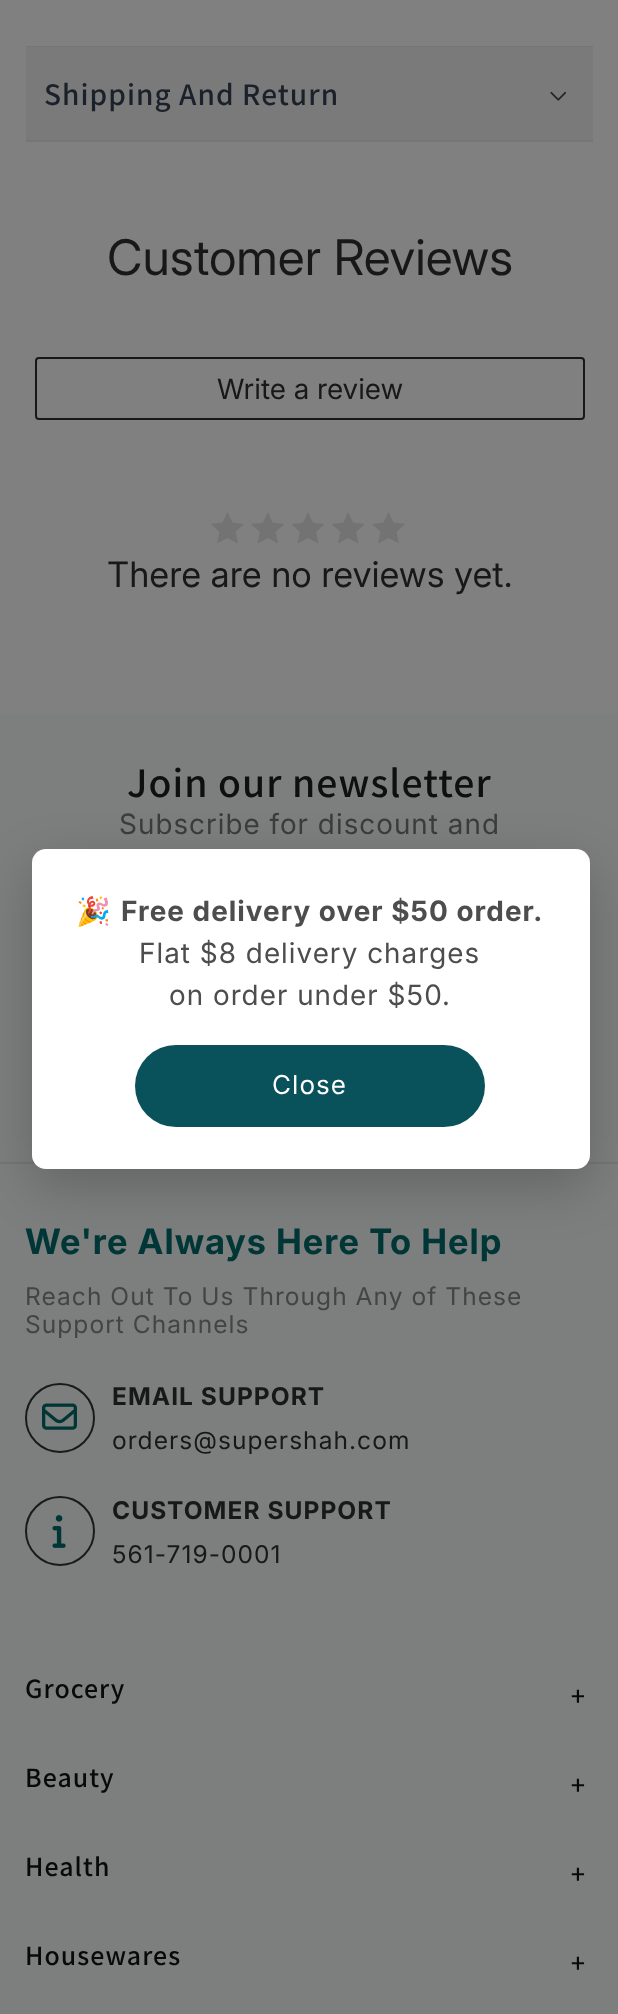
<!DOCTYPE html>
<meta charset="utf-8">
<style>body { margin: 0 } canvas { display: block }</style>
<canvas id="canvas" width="618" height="2014"></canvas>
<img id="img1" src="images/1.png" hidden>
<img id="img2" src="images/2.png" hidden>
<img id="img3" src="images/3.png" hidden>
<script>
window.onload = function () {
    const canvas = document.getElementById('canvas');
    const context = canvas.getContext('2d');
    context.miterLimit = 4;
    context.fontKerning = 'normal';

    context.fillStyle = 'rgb(128, 128, 128)';
    context.fillRect(0, 0, 618, 2014);
    context.fillStyle = 'rgb(118, 118, 118)';
    context.fillRect(26, 46, 567, 1);
    context.fillRect(26, 140, 567, 2);
    context.fillStyle = 'rgb(122, 122, 122)';
    context.fillRect(26, 47, 567, 93);
    context.drawImage(document.getElementById('img1'), 550, 91, 17, 10);
    context.beginPath();
    context.roundRect(36, 358, 548, 61, 3);
    context.strokeStyle = 'rgb(24, 24, 24)';
    context.lineWidth = 2;
    context.stroke();
    context.fillStyle = 'rgb(115, 115, 115)';
    context.beginPath();
    context.moveTo(227.5, 512);
    context.lineTo(232.5, 522.5);
    context.lineTo(244, 524);
    context.lineTo(235.5, 532);
    context.lineTo(238, 543.5);
    context.lineTo(227.5, 538);
    context.lineTo(217, 543.5);
    context.lineTo(219.5, 532);
    context.lineTo(211, 524);
    context.lineTo(222.5, 522.5);
    context.closePath();
    context.fill();
    context.beginPath();
    context.moveTo(268, 512);
    context.lineTo(272.5, 522.5);
    context.lineTo(284.5, 524);
    context.lineTo(275.5, 532);
    context.lineTo(278, 543.5);
    context.lineTo(268, 538);
    context.lineTo(257.5, 543.5);
    context.lineTo(260, 532);
    context.lineTo(251, 524);
    context.lineTo(263, 522.5);
    context.closePath();
    context.fill();
    context.beginPath();
    context.moveTo(308, 512);
    context.lineTo(313, 522.5);
    context.lineTo(324.5, 524);
    context.lineTo(316, 532);
    context.lineTo(318.5, 543.5);
    context.lineTo(308, 538);
    context.lineTo(297.5, 543.5);
    context.lineTo(300, 532);
    context.lineTo(291.5, 524);
    context.lineTo(303, 522.5);
    context.closePath();
    context.fill();
    context.beginPath();
    context.moveTo(348, 512);
    context.lineTo(353, 522.5);
    context.lineTo(365, 524);
    context.lineTo(356, 532);
    context.lineTo(358.5, 543.5);
    context.lineTo(348, 538);
    context.lineTo(338, 543.5);
    context.lineTo(340.5, 532);
    context.lineTo(331.5, 524);
    context.lineTo(343.5, 522.5);
    context.closePath();
    context.fill();
    context.beginPath();
    context.moveTo(388.5, 512);
    context.lineTo(393.5, 522.5);
    context.lineTo(405, 524);
    context.lineTo(396.5, 532);
    context.lineTo(399, 543.5);
    context.lineTo(388.5, 538);
    context.lineTo(378, 543.5);
    context.lineTo(380.5, 532);
    context.lineTo(372, 524);
    context.lineTo(383.5, 522.5);
    context.closePath();
    context.fill();
    context.fillStyle = 'rgb(125, 126, 126)';
    context.fillRect(0, 714, 618, 448);
    context.fillRect(0, 1164, 618, 850);
    context.fillStyle = 'rgb(116, 117, 117)';
    context.fillRect(0, 1162, 618, 2);
    context.fillStyle = 'rgba(0, 0, 0, 0.2)';
    context.filter = 'blur(26px)';
    context.beginPath();
    context.roundRect(32, 866, 558, 321, 14);
    context.fill();
    context.filter = 'none';
    context.fillStyle = 'rgb(255, 255, 255)';
    context.beginPath();
    context.roundRect(32, 849, 558, 320, 14);
    context.fill();
    context.fillStyle = 'rgb(10, 82, 91)';
    context.beginPath();
    context.roundRect(135, 1045, 350, 82, 41);
    context.fill();
    context.beginPath();
    context.arc(60, 1418, 34, 0, 2 * Math.PI);
    context.strokeStyle = 'rgb(26, 26, 26)';
    context.stroke();
    context.drawImage(document.getElementById('img2'), 42, 1403, 35, 27);
    context.beginPath();
    context.arc(60, 1531, 34, 0, 2 * Math.PI);
    context.stroke();
    context.drawImage(document.getElementById('img3'), 52, 1515, 14, 33);
    context.letterSpacing = '1.05px';
    context.font = '600 31.5px Assistant';
    context.fillStyle = 'rgb(26, 33, 43)';
    context.fillText('Shipping And Return', 44, 105);
    context.letterSpacing = '0px';
    context.font = '49px Inter';
    context.fillStyle = 'rgb(24, 24, 24)';
    context.fillText('Customer Reviews', 107, 275);
    context.font = '28px "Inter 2"';
    context.fillText('Write a review', 217, 399);
    context.font = '35px "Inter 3"';
    context.fillText('There are no reviews yet.', 107, 587);
    context.letterSpacing = '1.05px';
    context.font = '600 42px Assistant';
    context.fillStyle = 'rgb(15, 15, 15)';
    context.fillText('Join our newsletter', 127, 797);
    context.font = '28px "Inter 2"';
    context.fillStyle = 'rgb(59, 59, 59)';
    context.fillText('Subscribe for discount and', 119, 834);
    context.font = '28px Noto Color Emoji';
    context.fillStyle = 'rgb(77, 77, 77)';
    context.fillText('🎉', 76, 921);
    context.font = 'bold 28px "Inter 3"';
    context.fillText('Free delivery over $50 order.', 121, 921);
    context.font = '28px "Inter 2"';
    context.fillText('Flat $8 delivery charges', 139, 963);
    context.fillText('on order under $50.', 169, 1005);
    context.font = '26px "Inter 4"';
    context.fillStyle = 'rgb(255, 255, 255)';
    context.fillText('Close', 272, 1094);
    context.font = 'bold 35px Inter';
    context.fillStyle = 'rgb(0, 54, 54)';
    context.fillText('We\'re Always Here To Help', 25, 1254);
    context.font = '24.5px "Inter 4"';
    context.fillStyle = 'rgb(68, 68, 68)';
    context.fillText('Reach Out To Us Through Any of These', 25, 1305);
    context.fillText('Support Channels', 25, 1333);
    context.font = 'bold 24.5px "Inter 2"';
    context.fillStyle = 'rgb(24, 24, 24)';
    context.fillText('EMAIL SUPPORT', 112, 1405);
    context.font = '24.5px "Inter 4"';
    context.fillText('orders@supershah.com', 112, 1449);
    context.font = 'bold 24.5px "Inter 2"';
    context.fillText('CUSTOMER SUPPORT', 112, 1519);
    context.font = '24.5px "Inter 4"';
    context.fillText('561-719-0001', 112, 1563);
    context.font = '600 28px Assistant';
    context.fillStyle = 'rgb(9, 9, 9)';
    context.fillText('Grocery', 25, 1698);
    context.save();
    context.translate(585, 1687);
    context.rotate(180 * Math.PI / 180);
    context.fillText('+', 0, 0);
    context.restore();
    context.fillText('Beauty', 25, 1787);
    context.save();
    context.translate(585, 1776);
    context.rotate(180 * Math.PI / 180);
    context.fillText('+', 0, 0);
    context.restore();
    context.fillText('Health', 25, 1876);
    context.save();
    context.translate(585, 1865);
    context.rotate(180 * Math.PI / 180);
    context.fillText('+', 0, 0);
    context.restore();
    context.fillText('Housewares', 25, 1965);
    context.save();
    context.translate(585, 1954);
    context.rotate(180 * Math.PI / 180);
    context.fillText('+', 0, 0);
    context.restore();
};
</script>
